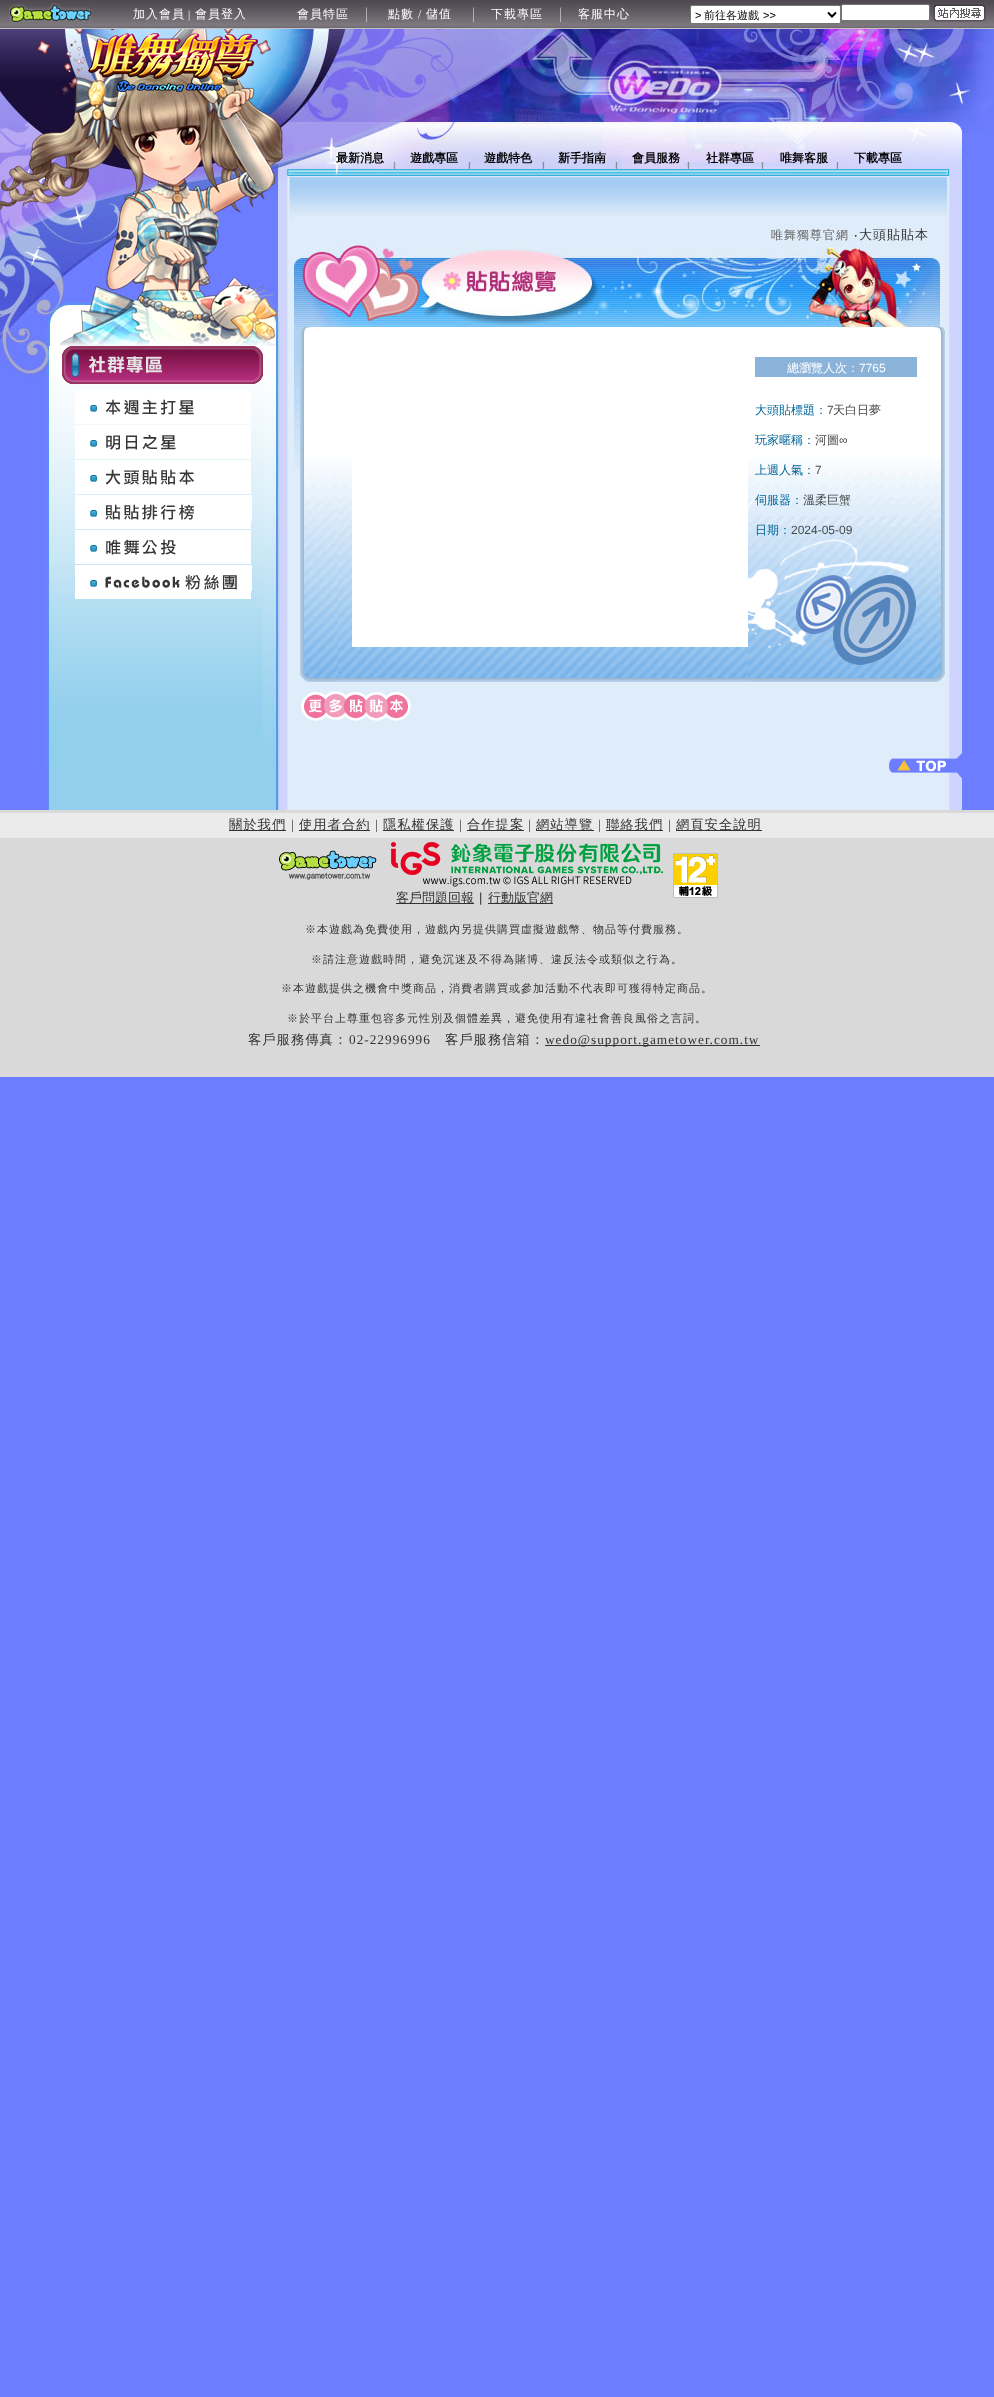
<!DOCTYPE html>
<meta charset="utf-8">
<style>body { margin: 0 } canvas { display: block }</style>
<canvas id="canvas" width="994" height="2397"></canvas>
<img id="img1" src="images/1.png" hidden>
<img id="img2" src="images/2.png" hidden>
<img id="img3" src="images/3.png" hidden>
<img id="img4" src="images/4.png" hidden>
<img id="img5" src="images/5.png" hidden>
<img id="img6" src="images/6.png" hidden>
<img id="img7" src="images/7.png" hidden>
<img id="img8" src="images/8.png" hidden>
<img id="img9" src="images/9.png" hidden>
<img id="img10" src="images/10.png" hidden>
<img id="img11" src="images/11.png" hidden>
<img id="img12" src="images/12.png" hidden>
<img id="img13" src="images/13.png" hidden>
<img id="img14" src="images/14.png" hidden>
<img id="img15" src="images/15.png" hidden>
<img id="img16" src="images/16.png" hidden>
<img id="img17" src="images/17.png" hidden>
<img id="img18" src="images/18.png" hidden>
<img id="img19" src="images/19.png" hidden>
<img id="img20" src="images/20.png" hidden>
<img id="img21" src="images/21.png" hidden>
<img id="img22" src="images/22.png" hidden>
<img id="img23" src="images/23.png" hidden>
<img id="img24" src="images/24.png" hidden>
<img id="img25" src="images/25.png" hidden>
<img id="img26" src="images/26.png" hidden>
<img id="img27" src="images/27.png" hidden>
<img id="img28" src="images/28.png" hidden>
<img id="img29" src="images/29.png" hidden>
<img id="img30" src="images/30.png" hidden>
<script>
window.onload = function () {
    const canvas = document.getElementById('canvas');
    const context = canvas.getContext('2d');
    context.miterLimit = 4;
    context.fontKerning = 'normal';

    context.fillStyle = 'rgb(108, 125, 255)';
    context.fillRect(0, 0, 994, 2397);
    context.drawImage(document.getElementById('img1'), 0, 0, 994, 29);
    context.drawImage(document.getElementById('img2'), 9, 2, 83, 21);
    context.drawImage(document.getElementById('img3'), 366, 7, 1, 15);
    context.drawImage(document.getElementById('img3'), 473, 7, 1, 15);
    context.drawImage(document.getElementById('img3'), 560, 7, 1, 15);
    context.fillStyle = 'rgb(255, 255, 255)';
    context.beginPath();
    context.roundRect(690.5, 5.5, 150, 18, 1.5);
    context.fill();
    context.strokeStyle = 'rgb(118, 118, 118)';
    context.stroke();
    context.beginPath();
    context.moveTo(828, 12.5);
    context.lineTo(832, 16.5);
    context.lineTo(836, 12.5);
    context.strokeStyle = 'rgb(0, 0, 0)';
    context.lineWidth = 2;
    context.stroke();
    context.beginPath();
    context.roundRect(841.5, 4.5, 88, 16, 1.5);
    context.fill();
    context.strokeStyle = 'rgb(118, 118, 118)';
    context.lineWidth = 1;
    context.stroke();
    context.drawImage(document.getElementById('img4'), 933, 4, 53, 18);
    context.drawImage(document.getElementById('img5'), 962, 29, 32, 104);
    context.drawImage(document.getElementById('img6'), 47, 216, 915, 594);
    context.drawImage(document.getElementById('img7'), 0, 29, 294, 740);
    context.drawImage(document.getElementById('img8'), 0, 29, 284, 317);
    context.drawImage(document.getElementById('img9'), 49, 346, 214, 464);
    context.drawImage(document.getElementById('img10'), 62, 346, 201, 38);
    context.drawImage(document.getElementById('img11'), 75, 390, 176, 34);
    context.drawImage(document.getElementById('img12'), 75, 425, 176, 34);
    context.drawImage(document.getElementById('img13'), 75, 460, 176, 34);
    context.drawImage(document.getElementById('img14'), 75, 495, 177, 34);
    context.drawImage(document.getElementById('img15'), 75, 530, 176, 34);
    context.drawImage(document.getElementById('img16'), 75, 565, 177, 34);
    context.drawImage(document.getElementById('img17'), 294, 29, 668, 96);
    context.drawImage(document.getElementById('img18'), 294, 125, 648, 91);
    context.drawImage(document.getElementById('img19'), 942, 125, 20, 91);
    context.drawImage(document.getElementById('img20'), 294, 245, 646, 224);
    context.drawImage(document.getElementById('img21'), 300, 245, 335, 82);
    context.drawImage(document.getElementById('img22'), 300, 327, 38, 355);
    context.drawImage(document.getElementById('img23'), 338, 327, 410, 355);
    context.fillRect(352, 459, 396, 188);
    context.drawImage(document.getElementById('img24'), 748, 327, 169, 355);
    context.fillStyle = 'rgb(139, 179, 218)';
    context.fillRect(755, 357, 162, 20);
    context.drawImage(document.getElementById('img25'), 917, 327, 28, 355);
    context.drawImage(document.getElementById('img26'), 301, 691, 110, 30);
    context.drawImage(document.getElementById('img27'), 889, 749, 73, 34);
    context.fillStyle = 'rgb(217, 217, 217)';
    context.fillRect(0, 810, 994, 3);
    context.fillStyle = 'rgb(235, 235, 235)';
    context.fillRect(0, 813, 994, 25);
    context.fillStyle = 'rgb(51, 51, 51)';
    context.fillRect(229, 830, 57, 1);
    context.fillRect(299, 830, 71, 1);
    context.fillRect(383, 830, 71, 1);
    context.fillRect(467, 830, 57, 1);
    context.fillRect(536, 830, 58, 1);
    context.fillRect(606, 830, 57, 1);
    context.fillRect(676, 830, 86, 1);
    context.fillStyle = 'rgb(217, 217, 217)';
    context.fillRect(0, 838, 994, 239);
    context.drawImage(document.getElementById('img28'), 279, 850, 98, 30);
    context.drawImage(document.getElementById('img29'), 391, 842, 272, 45);
    context.fillStyle = 'rgb(51, 51, 51)';
    context.fillRect(396, 903, 78, 1);
    context.fillRect(488, 903, 65, 1);
    context.drawImage(document.getElementById('img30'), 673, 853, 45, 45);
    context.fillRect(545, 1045, 215, 1);
    context.letterSpacing = '1px';
    context.font = '500 12px WenQuanYi Zen Hei';
    context.fillStyle = 'rgb(255, 255, 255)';
    context.fillText('加入會員', 133, 18);
    context.font = '11px Liberation Serif';
    context.fillText('|', 188, 18);
    context.font = '500 12px WenQuanYi Zen Hei';
    context.fillText('會員登入', 195, 18);
    context.fillText('會員特區', 297, 18);
    context.fillText('點數', 388, 18);
    context.font = '12px Liberation Serif';
    context.fillText('/', 418, 18);
    context.font = '500 12px WenQuanYi Zen Hei';
    context.fillText('儲值', 426, 18);
    context.fillText('下載專區', 491, 18);
    context.fillText('客服中心', 578, 18);
    context.letterSpacing = '0px';
    context.font = '11px Liberation Sans';
    context.fillStyle = 'rgb(0, 0, 0)';
    context.fillText('>', 695, 19);
    context.font = '500 11px WenQuanYi Zen Hei';
    context.fillText('前往各遊戲', 704, 19);
    context.font = '11px Liberation Sans';
    context.fillText('>>', 763, 19);
    context.font = 'bold 12px WenQuanYi Zen Hei';
    context.fillText('最新消息', 336, 162);
    context.fillText('遊戲專區', 410, 162);
    context.fillText('遊戲特色', 484, 162);
    context.fillText('新手指南', 558, 162);
    context.fillText('會員服務', 632, 162);
    context.fillText('社群專區', 706, 162);
    context.fillText('唯舞客服', 780, 162);
    context.fillText('下載專區', 854, 162);
    context.letterSpacing = '1px';
    context.font = '500 12px WenQuanYi Zen Hei';
    context.fillStyle = 'rgb(102, 102, 102)';
    context.fillText('唯舞獨尊官網', 771, 239);
    context.font = '13px Noto Sans';
    context.fillStyle = 'rgb(51, 51, 51)';
    context.fillText('‧', 854, 239);
    context.font = '500 13px WenQuanYi Zen Hei';
    context.fillText('大頭貼貼本', 859, 239);
    context.letterSpacing = '0px';
    context.font = '500 12px WenQuanYi Zen Hei';
    context.fillStyle = 'rgb(255, 255, 255)';
    context.fillText('總瀏覽人次：', 787, 372);
    context.font = '12px Liberation Sans';
    context.fillText('7765', 859, 372);
    context.font = '500 12px WenQuanYi Zen Hei';
    context.fillStyle = 'rgb(0, 102, 153)';
    context.fillText('大頭貼標題：', 755, 414);
    context.font = '12px Liberation Sans';
    context.fillStyle = 'rgb(73, 73, 73)';
    context.fillText('7', 827, 414);
    context.font = '500 12px WenQuanYi Zen Hei';
    context.fillText('天白日夢', 833, 414);
    context.fillStyle = 'rgb(0, 102, 153)';
    context.fillText('玩家暱稱：', 755, 444);
    context.fillStyle = 'rgb(73, 73, 73)';
    context.fillText('河圖', 815, 444);
    context.font = '12px Liberation Sans';
    context.fillText('∞', 839, 444);
    context.font = '500 12px WenQuanYi Zen Hei';
    context.fillStyle = 'rgb(0, 102, 153)';
    context.fillText('上週人氣：', 755, 474);
    context.font = '12px Liberation Sans';
    context.fillStyle = 'rgb(73, 73, 73)';
    context.fillText('7', 815, 474);
    context.font = '500 12px WenQuanYi Zen Hei';
    context.fillStyle = 'rgb(0, 102, 153)';
    context.fillText('伺服器：', 755, 504);
    context.fillStyle = 'rgb(73, 73, 73)';
    context.fillText('溫柔巨蟹', 803, 504);
    context.fillStyle = 'rgb(0, 102, 153)';
    context.fillText('日期：', 755, 534);
    context.font = '12px Liberation Sans';
    context.fillStyle = 'rgb(73, 73, 73)';
    context.fillText('2024-05-09', 791, 534);
    context.letterSpacing = '1px';
    context.font = '500 13.3px WenQuanYi Zen Hei';
    context.fillStyle = 'rgb(51, 51, 51)';
    context.fillText('關於我們', 229, 829);
    context.font = '13.3px Liberation Serif';
    context.fillText('|', 291, 829);
    context.font = '500 13.3px WenQuanYi Zen Hei';
    context.fillText('使用者合約', 299, 829);
    context.font = '13.3px Liberation Serif';
    context.fillText('|', 375, 829);
    context.font = '500 13.3px WenQuanYi Zen Hei';
    context.fillText('隱私權保護', 383, 829);
    context.font = '13.3px Liberation Serif';
    context.fillText('|', 459, 829);
    context.font = '500 13.3px WenQuanYi Zen Hei';
    context.fillText('合作提案', 467, 829);
    context.font = '13.3px Liberation Serif';
    context.fillText('|', 528, 829);
    context.font = '500 13.3px WenQuanYi Zen Hei';
    context.fillText('網站導覽', 536, 829);
    context.font = '13.3px Liberation Serif';
    context.fillText('|', 598, 829);
    context.font = '500 13.3px WenQuanYi Zen Hei';
    context.fillText('聯絡我們', 606, 829);
    context.font = '13.3px Liberation Serif';
    context.fillText('|', 668, 829);
    context.font = '500 13.3px WenQuanYi Zen Hei';
    context.fillText('網頁安全說明', 676, 829);
    context.letterSpacing = '0px';
    context.font = '500 13px WenQuanYi Zen Hei';
    context.fillText('客戶問題回報', 396, 902);
    context.letterSpacing = '1px';
    context.font = '13px Liberation Sans';
    context.fillText('|', 479, 902);
    context.letterSpacing = '0px';
    context.font = '500 13px WenQuanYi Zen Hei';
    context.fillText('行動版官網', 488, 902);
    context.letterSpacing = '1px';
    context.font = '500 11px WenQuanYi Zen Hei';
    context.fillText('※本遊戲為免費使用，遊戲內另提供購買虛擬遊戲幣、物品等付費服務。', 305, 933);
    context.fillText('※請注意遊戲時間，避免沉迷及不得為賭博、違反法令或類似之行為。', 311, 963);
    context.fillText('※本遊戲提供之機會中獎商品，消費者購買或參加活動不代表即可獲得特定商品。', 281, 992);
    context.fillText('※於平台上尊重包容多元性別及個體差異，避免使用有違社會善良風俗之言詞。', 287, 1022);
    context.font = '500 13.3px WenQuanYi Zen Hei';
    context.fillText('客戶服務傳真：', 248, 1044);
    context.font = '13.3px Liberation Serif';
    context.fillText('02-22996996', 349, 1044);
    context.font = '500 13.3px WenQuanYi Zen Hei';
    context.fillText('客戶服務信箱：', 445, 1044);
    context.font = '13.3px Liberation Serif';
    context.fillText('wedo@support.gametower.com.tw', 545, 1044);
};
</script>
